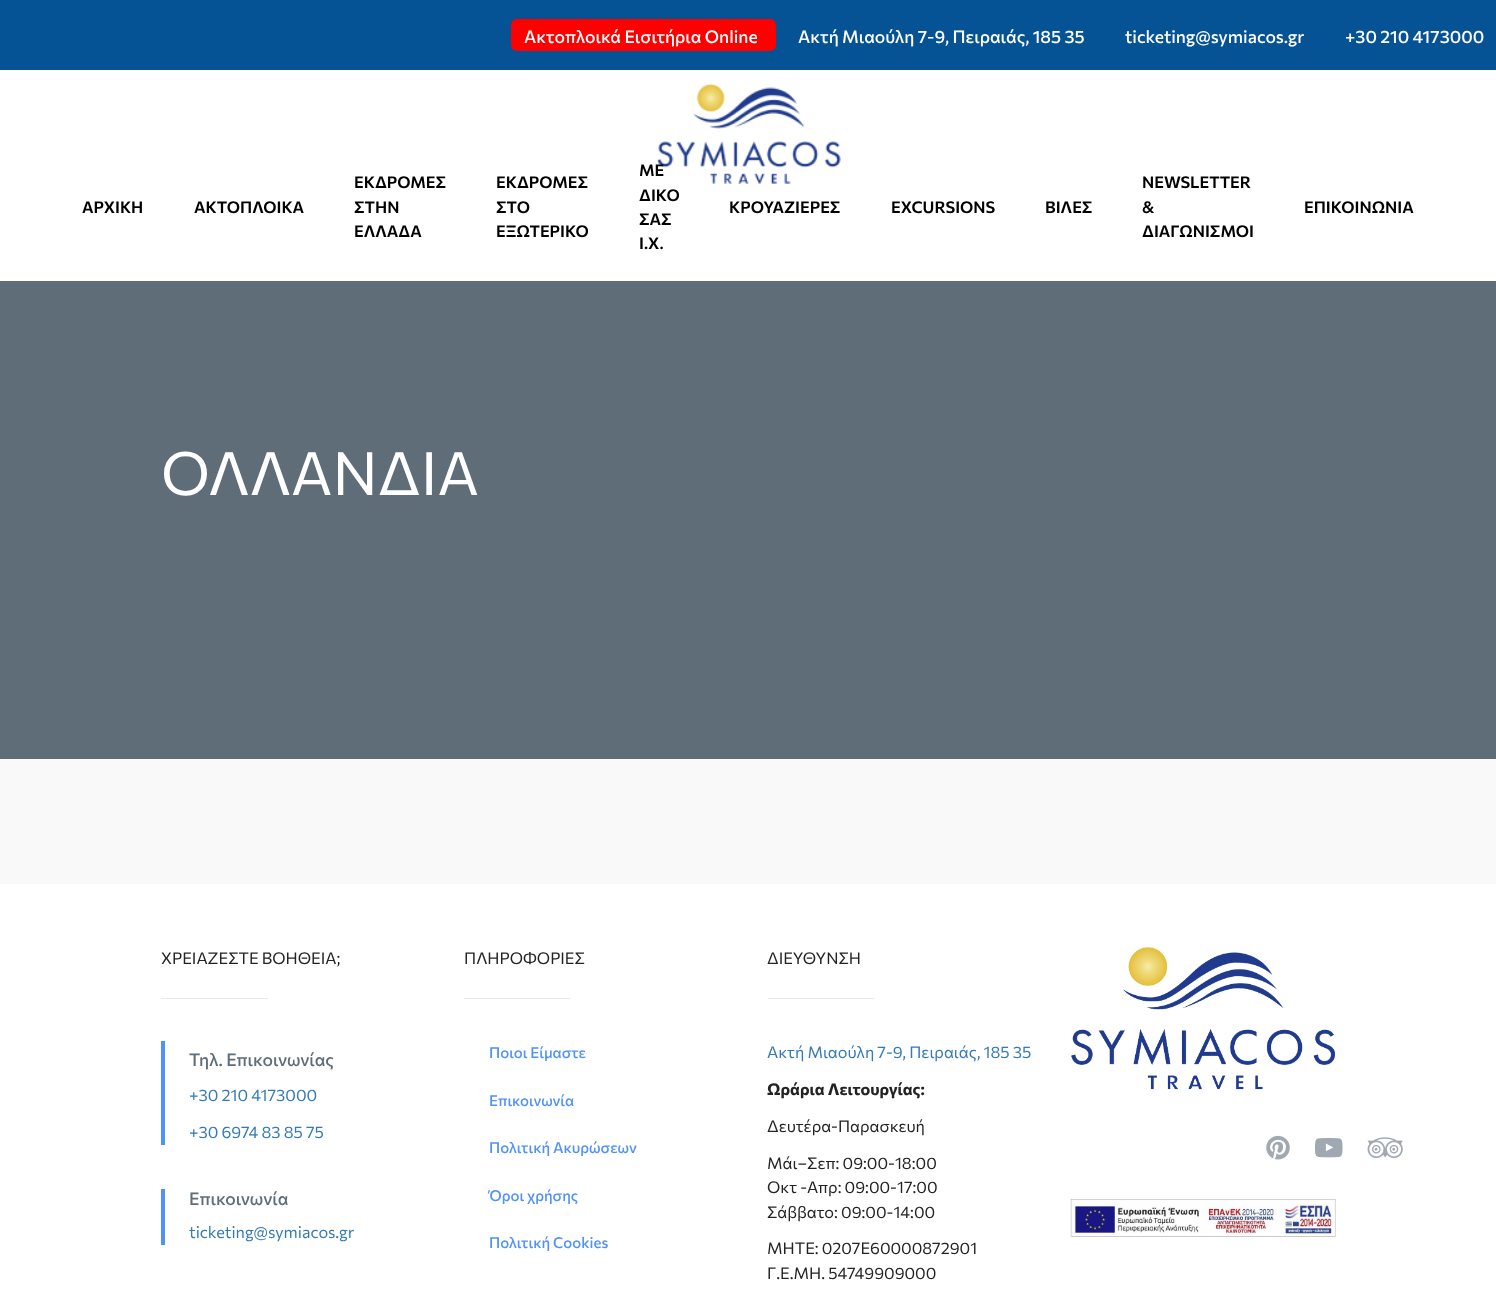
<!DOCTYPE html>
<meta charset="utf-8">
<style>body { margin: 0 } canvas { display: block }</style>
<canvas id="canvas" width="1496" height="1289"></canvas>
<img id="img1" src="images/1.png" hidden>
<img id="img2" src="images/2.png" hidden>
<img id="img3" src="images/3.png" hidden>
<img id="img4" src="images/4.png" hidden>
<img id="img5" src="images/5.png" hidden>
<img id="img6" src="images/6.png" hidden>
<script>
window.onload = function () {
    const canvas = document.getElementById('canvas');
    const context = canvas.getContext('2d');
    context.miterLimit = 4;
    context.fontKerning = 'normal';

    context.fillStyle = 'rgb(255, 255, 255)';
    context.fillRect(0, 0, 1496, 1289);
    context.fillStyle = 'rgb(5, 83, 149)';
    context.fillRect(0, 0, 1496, 70);
    context.fillStyle = 'rgb(255, 0, 0)';
    context.beginPath();
    context.roundRect(511, 19, 265, 32, 6);
    context.fill();
    context.drawImage(document.getElementById('img1'), 656, 83, 185, 101);
    context.fillStyle = 'rgb(249, 249, 249)';
    context.fillRect(0, 759, 1496, 125);
    context.fillStyle = 'rgb(94, 109, 119)';
    context.fillRect(0, 281, 1496, 478);
    context.fillStyle = 'rgb(234, 234, 234)';
    context.fillRect(161, 998, 107, 1);
    context.fillStyle = 'rgb(81, 145, 250)';
    context.fillRect(161, 1041, 4, 104);
    context.fillRect(161, 1189, 4, 56);
    context.fillStyle = 'rgb(234, 234, 234)';
    context.fillRect(464, 998, 106, 1);
    context.fillRect(768, 998, 106, 1);
    context.drawImage(document.getElementById('img2'), 1071, 947, 264, 143);
    context.drawImage(document.getElementById('img3'), 1266, 1135, 24, 25);
    context.drawImage(document.getElementById('img4'), 1315, 1138, 28, 20);
    context.drawImage(document.getElementById('img5'), 1367, 1137, 36, 21);
    context.drawImage(document.getElementById('img6'), 1070, 1198, 266, 39);
    context.font = '500 17.5px Commissioner';
    context.fillStyle = 'rgb(255, 255, 255)';
    context.fillText('Ακτοπλοικά Εισιτήρια Online', 524, 43);
    context.fillText('Ακτή Μιαούλη 7-9, Πειραιάς, 185 35', 798, 43);
    context.fillText('ticketing@symiacos.gr', 1125, 43);
    context.fillText('+30 210 4173000', 1345, 43);
    context.font = '600 16.25px Commissioner';
    context.fillStyle = 'rgb(0, 0, 0)';
    context.fillText('ΑΡΧΙΚΗ', 82, 213);
    context.fillText('ΑΚΤΟΠΛΟΙΚΑ', 194, 213);
    context.fillText('ΕΚΔΡΟΜΕΣ', 354, 188);
    context.fillText('ΣΤΗΝ', 354, 213);
    context.fillText('ΕΛΛΑΔΑ', 354, 237);
    context.fillText('ΕΚΔΡΟΜΕΣ', 496, 188);
    context.fillText('ΣΤΟ', 496, 213);
    context.fillText('ΕΞΩΤΕΡΙΚΟ', 496, 237);
    context.fillText('ΜΕ', 639, 176);
    context.fillText('ΔΙΚΟ', 639, 201);
    context.fillText('ΣΑΣ', 639, 225);
    context.fillText('Ι.Χ.', 639, 249);
    context.fillText('ΚΡΟΥΑΖΙΕΡΕΣ', 729, 213);
    context.fillText('EXCURSIONS', 891, 213);
    context.fillText('ΒΙΛΕΣ', 1045, 213);
    context.fillText('NEWSLETTER', 1142, 188);
    context.fillText('&', 1142, 213);
    context.fillText('ΔΙΑΓΩΝΙΣΜΟΙ', 1142, 237);
    context.fillText('ΕΠΙΚΟΙΝΩΝΙΑ', 1304, 213);
    context.font = '60px Commissioner';
    context.fillStyle = 'rgb(255, 255, 255)';
    context.fillText('ΟΛΛΑΝΔΙΑ', 161, 495);
    context.font = '16.25px Commissioner';
    context.fillStyle = 'rgb(35, 35, 35)';
    context.fillText('ΧΡΕΙΑΖΕΣΤΕ ΒΟΗΘΕΙΑ;', 161, 964);
    context.font = '500 17.5px Commissioner';
    context.fillStyle = 'rgb(94, 109, 119)';
    context.fillText('Τηλ. Επικοινωνίας', 189, 1066);
    context.font = '16.25px Commissioner';
    context.fillStyle = 'rgb(51, 122, 183)';
    context.fillText('+30 210 4173000', 189, 1101);
    context.fillText('+30 6974 83 85 75', 189, 1138);
    context.font = '500 17.5px Commissioner';
    context.fillStyle = 'rgb(94, 109, 119)';
    context.fillText('Επικοινωνία', 189, 1205);
    context.font = '16.25px Commissioner';
    context.fillStyle = 'rgb(51, 122, 183)';
    context.fillText('ticketing@symiacos.gr', 189, 1238);
    context.fillStyle = 'rgb(35, 35, 35)';
    context.fillText('ΠΛΗΡΟΦΟΡΙΕΣ', 464, 964);
    context.font = '500 15px Commissioner';
    context.fillStyle = 'rgb(81, 145, 250)';
    context.fillText('Ποιοι Είμαστε', 489, 1058);
    context.fillText('Επικοινωνία', 489, 1106);
    context.fillText('Πολιτική Ακυρώσεων', 489, 1153);
    context.fillText('Όροι χρήσης', 489, 1201);
    context.fillText('Πολιτική Cookies', 489, 1248);
    context.font = '16.25px Commissioner';
    context.fillStyle = 'rgb(35, 35, 35)';
    context.fillText('ΔΙΕΥΘΥΝΣΗ', 767, 964);
    context.fillStyle = 'rgb(51, 122, 183)';
    context.fillText('Ακτή Μιαούλη 7-9, Πειραιάς, 185 35', 767, 1058);
    context.font = 'bold 16.25px Commissioner';
    context.fillStyle = 'rgb(35, 35, 35)';
    context.fillText('Ωράρια Λειτουργίας:', 767, 1095);
    context.font = '16.25px Commissioner';
    context.fillText('Δευτέρα-Παρασκευή', 767, 1132);
    context.fillText('Μάι–Σεπ: 09:00-18:00', 767, 1169);
    context.fillText('Οκτ -Απρ: 09:00-17:00', 767, 1193);
    context.fillText('Σάββατο: 09:00-14:00', 767, 1218);
    context.fillText('MHTE: 0207E60000872901', 767, 1254);
    context.fillText('Γ.Ε.ΜΗ. 54749909000', 767, 1279);
};
</script>
